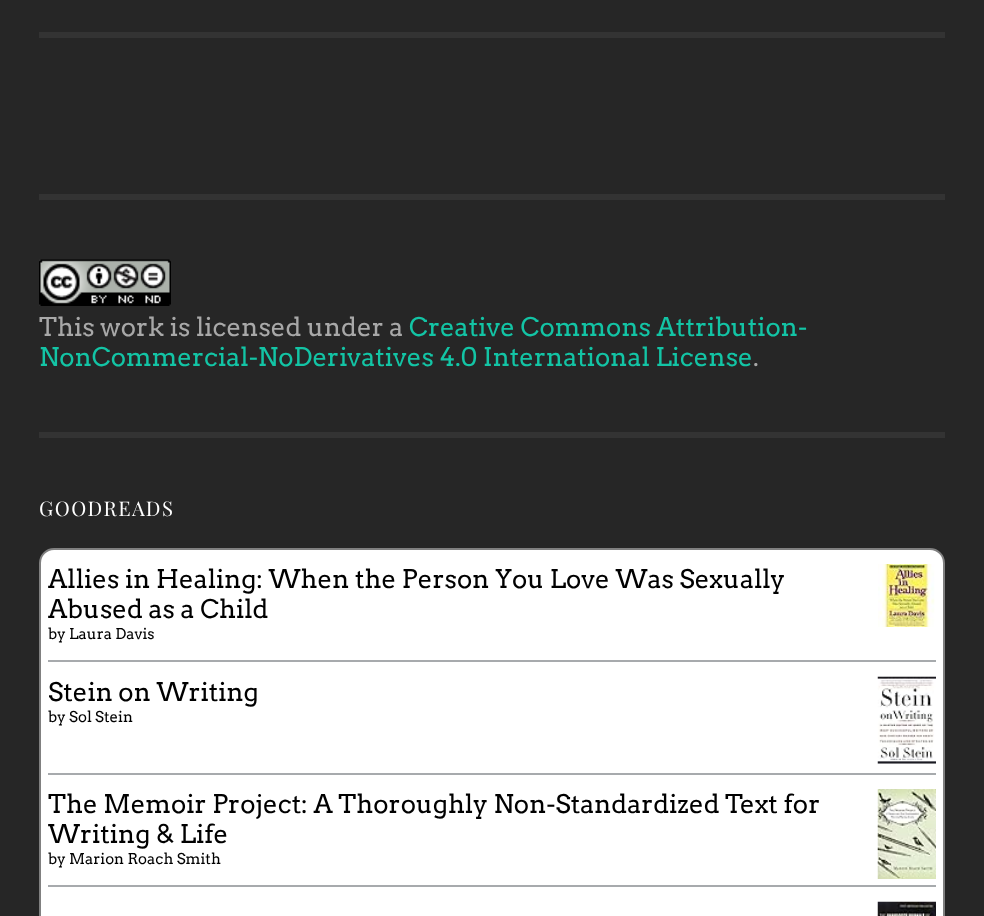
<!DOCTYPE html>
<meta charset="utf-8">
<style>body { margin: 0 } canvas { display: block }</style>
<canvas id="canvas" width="984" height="916"></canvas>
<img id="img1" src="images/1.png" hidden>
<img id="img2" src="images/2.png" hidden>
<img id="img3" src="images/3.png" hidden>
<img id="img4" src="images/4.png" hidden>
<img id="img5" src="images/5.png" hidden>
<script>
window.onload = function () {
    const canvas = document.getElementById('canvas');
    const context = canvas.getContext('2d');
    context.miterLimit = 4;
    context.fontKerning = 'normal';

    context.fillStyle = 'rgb(38, 38, 38)';
    context.fillRect(0, 0, 984, 916);
    context.fillStyle = 'rgb(51, 51, 51)';
    context.fillRect(39, 32, 906, 6);
    context.fillRect(39, 194, 906, 6);
    context.drawImage(document.getElementById('img1'), 39, 259, 132, 47);
    context.fillRect(39, 432, 906, 6);
    context.fillStyle = 'rgb(255, 255, 255)';
    context.beginPath();
    context.roundRect(40, 549, 904, 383, 14);
    context.fill();
    context.strokeStyle = 'rgb(128, 128, 128)';
    context.lineWidth = 2;
    context.stroke();
    context.fillStyle = 'rgb(167, 170, 173)';
    context.fillRect(48, 660, 888, 2);
    context.drawImage(document.getElementById('img2'), 878, 564, 57, 63);
    context.fillRect(48, 773, 888, 2);
    context.drawImage(document.getElementById('img3'), 877, 676, 59, 88);
    context.fillRect(48, 885, 888, 2);
    context.drawImage(document.getElementById('img4'), 877, 789, 59, 90);
    context.drawImage(document.getElementById('img5'), 877, 901, 59, 15);
    context.font = '25.65px Arvo';
    context.fillStyle = 'rgb(168, 168, 168)';
    context.fillText('This work is licensed under a', 39, 336);
    context.fillStyle = 'rgb(19, 196, 165)';
    context.fillText('Creative Commons Attribution-', 409, 336);
    context.fillText('NonCommercial-NoDerivatives 4.0 International License', 39, 366);
    context.fillStyle = 'rgb(168, 168, 168)';
    context.fillText('.', 753, 366);
    context.letterSpacing = '1.5px';
    context.font = '20.25px Playfair Display';
    context.fillStyle = 'rgb(255, 255, 255)';
    context.fillText('GOODREADS', 39, 516);
    context.letterSpacing = '0px';
    context.font = '25.65px Arvo';
    context.fillStyle = 'rgb(0, 0, 0)';
    context.fillText('Allies in Healing: When the Person You Love Was Sexually', 48, 588);
    context.fillText('Abused as a Child', 48, 618);
    context.font = '15px Arvo';
    context.fillText('by Laura Davis', 48, 639);
    context.font = '25.65px Arvo';
    context.fillText('Stein on Writing', 48, 701);
    context.font = '15px Arvo';
    context.fillText('by Sol Stein', 48, 722);
    context.font = '25.65px Arvo';
    context.fillText('The Memoir Project: A Thoroughly Non-Standardized Text for', 48, 813);
    context.fillText('Writing & Life', 48, 843);
    context.font = '15px Arvo';
    context.fillText('by Marion Roach Smith', 48, 864);
};
</script>
